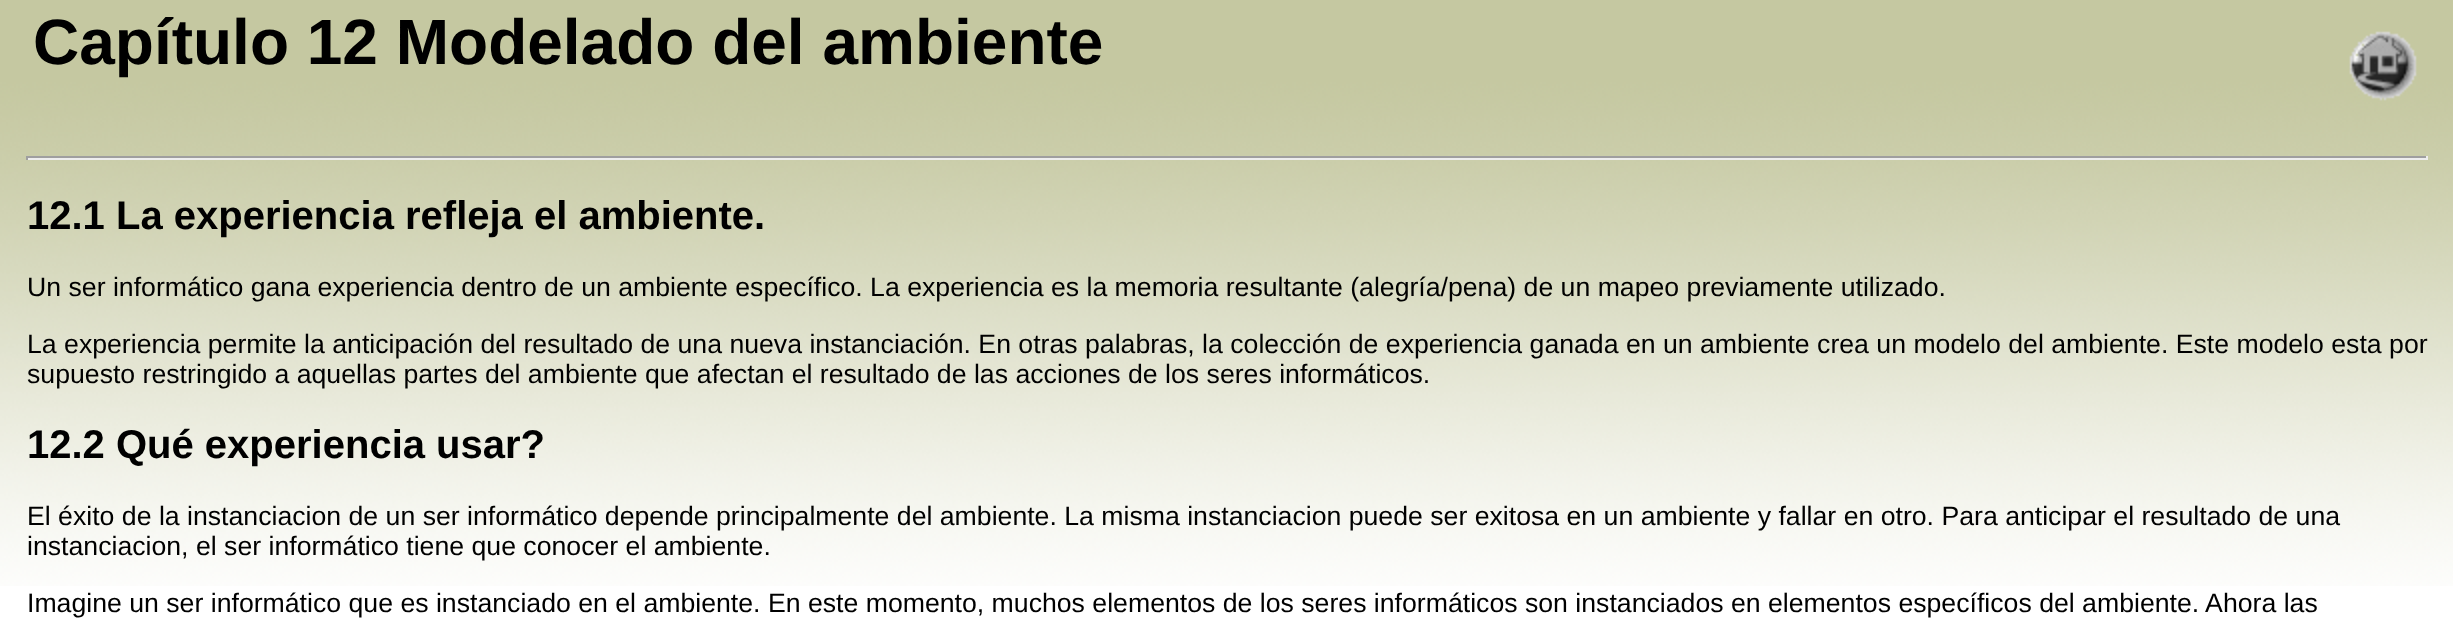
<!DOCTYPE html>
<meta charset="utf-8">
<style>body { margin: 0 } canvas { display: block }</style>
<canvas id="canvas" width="2453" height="635"></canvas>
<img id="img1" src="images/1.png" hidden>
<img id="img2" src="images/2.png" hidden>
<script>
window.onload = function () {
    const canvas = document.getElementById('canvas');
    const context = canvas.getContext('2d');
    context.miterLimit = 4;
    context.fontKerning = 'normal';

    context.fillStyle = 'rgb(255, 255, 255)';
    context.fillRect(0, 0, 2453, 635);
    context.drawImage(document.getElementById('img1'), 0, 0, 2453, 586);
    context.drawImage(document.getElementById('img2'), 2349, 31, 68, 70);
    context.fillStyle = 'rgb(159, 159, 159)';
    context.fillRect(26, 156, 2402, 2);
    context.fillStyle = 'rgb(238, 238, 238)';
    context.fillRect(2426, 156, 2, 4);
    context.fillRect(26, 158, 2402, 2);
    context.fillStyle = 'rgb(159, 159, 159)';
    context.fillRect(26, 156, 2, 4);
    context.font = 'bold 64px Liberation Sans';
    context.fillStyle = 'rgb(0, 0, 0)';
    context.fillText('Capítulo 12 Modelado del ambiente', 33, 64);
    context.font = 'bold 40px Liberation Sans';
    context.fillText('12.1 La experiencia refleja el ambiente.', 27, 229);
    context.font = '26.67px Liberation Sans';
    context.fillText('Un ser informático gana experiencia dentro de un ambiente específico. La experiencia es la memoria resultante (alegría/pena) de un mapeo previamente utilizado.', 27, 296);
    context.fillText('La experiencia permite la anticipación del resultado de una nueva instanciación. En otras palabras, la colección de experiencia ganada en un ambiente crea un modelo del ambiente. Este modelo esta por', 27, 353);
    context.fillText('supuesto restringido a aquellas partes del ambiente que afectan el resultado de las acciones de los seres informáticos.', 27, 383);
    context.font = 'bold 40px Liberation Sans';
    context.fillText('12.2 Qué experiencia usar?', 27, 458);
    context.font = '26.67px Liberation Sans';
    context.fillText('El éxito de la instanciacion de un ser informático depende principalmente del ambiente. La misma instanciacion puede ser exitosa en un ambiente y fallar en otro. Para anticipar el resultado de una', 27, 525);
    context.fillText('instanciacion, el ser informático tiene que conocer el ambiente.', 27, 555);
    context.fillText('Imagine un ser informático que es instanciado en el ambiente. En este momento, muchos elementos de los seres informáticos son instanciados en elementos específicos del ambiente. Ahora las', 27, 612);
};
</script>
